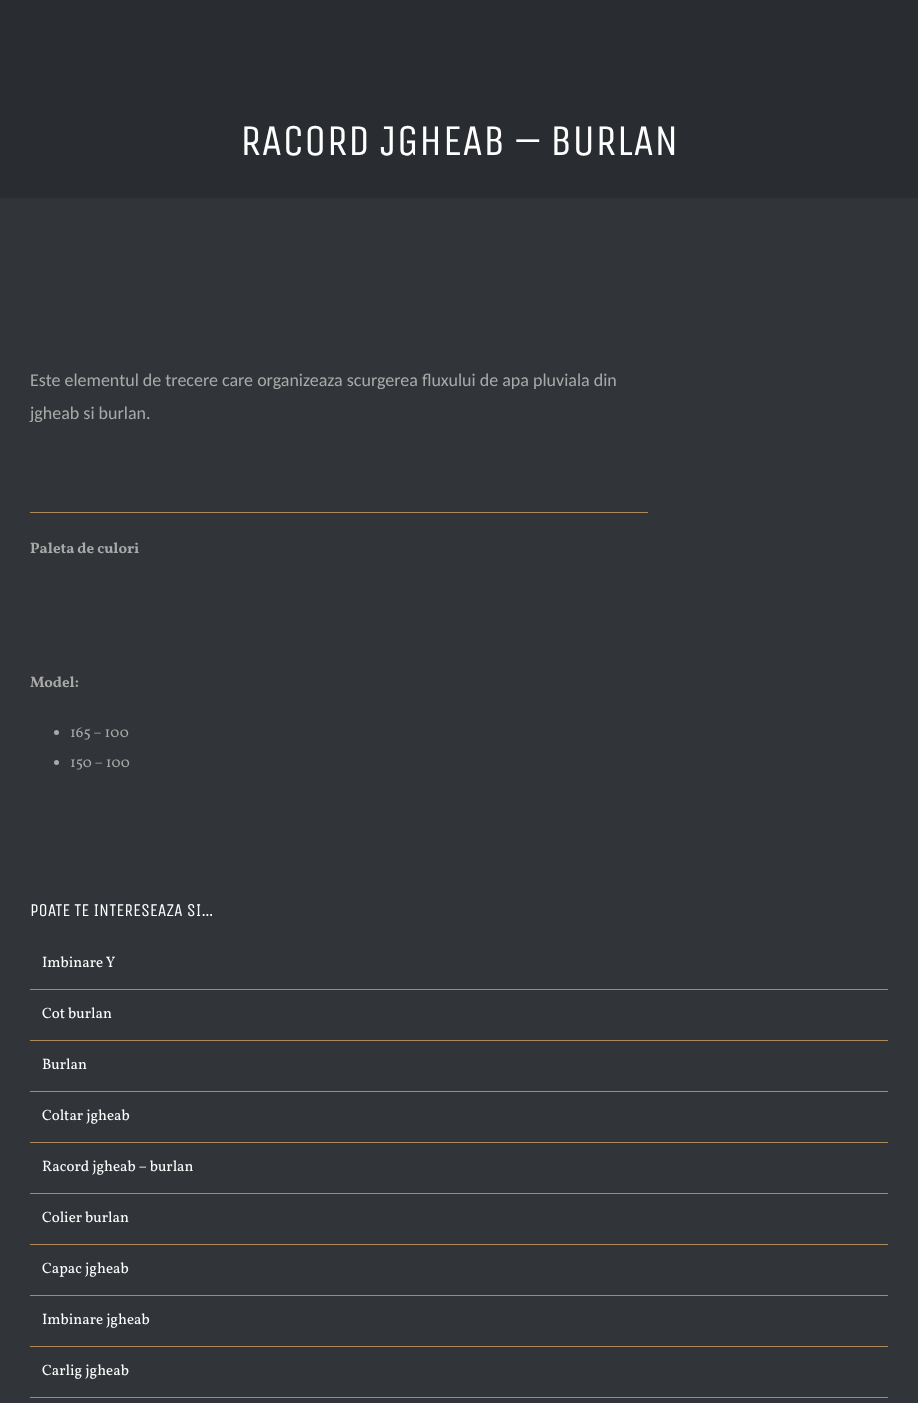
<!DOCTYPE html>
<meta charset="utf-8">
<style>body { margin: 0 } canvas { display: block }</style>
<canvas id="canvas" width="918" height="1403"></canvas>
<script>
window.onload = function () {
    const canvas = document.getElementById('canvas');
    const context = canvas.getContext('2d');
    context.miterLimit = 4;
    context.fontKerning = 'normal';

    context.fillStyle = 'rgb(49, 53, 57)';
    context.fillRect(0, 0, 918, 1403);
    context.fillStyle = 'rgb(41, 44, 48)';
    context.fillRect(0, 0, 918, 198);
    context.fillStyle = 'rgb(174, 137, 93)';
    context.fillRect(30, 512, 618, 1);
    context.fillStyle = 'rgb(170, 169, 169)';
    context.beginPath();
    context.arc(56.5, 732.5, 2.5, 0, 2 * Math.PI);
    context.fill();
    context.beginPath();
    context.arc(56.5, 762.5, 2.5, 0, 2 * Math.PI);
    context.fill();
    context.fillStyle = 'rgb(174, 137, 93)';
    context.fillRect(30, 989, 858, 1);
    context.fillRect(30, 1040, 858, 1);
    context.fillRect(30, 1091, 858, 1);
    context.fillRect(30, 1142, 858, 1);
    context.fillRect(30, 1193, 858, 1);
    context.fillRect(30, 1244, 858, 1);
    context.fillRect(30, 1295, 858, 1);
    context.fillRect(30, 1346, 858, 1);
    context.fillRect(30, 1397, 858, 1);
    context.font = '44px Unica One';
    context.fillStyle = 'rgb(255, 255, 255)';
    context.fillText('RACORD JGHEAB – BURLAN', 240, 155);
    context.font = '18px Carlito';
    context.fillStyle = 'rgb(170, 169, 169)';
    context.fillText('Este elementul de trecere care organizeaza scurgerea fluxului de apa pluviala din', 30, 386);
    context.fillText('jgheab si burlan.', 30, 419);
    context.font = 'bold 15px Vollkorn';
    context.fillText('Paleta de culori', 30, 553);
    context.fillText('Model:', 30, 687);
    context.font = '15px Vollkorn';
    context.fillText('165 – 100', 70, 737);
    context.fillText('150 – 100', 70, 767);
    context.font = '18px Unica One';
    context.fillStyle = 'rgb(255, 255, 255)';
    context.fillText('POATE TE INTERESEAZA SI…', 30, 916);
    context.font = '15px Vollkorn';
    context.fillText('Imbinare Y', 42, 967);
    context.fillText('Cot burlan', 42, 1018);
    context.fillText('Burlan', 42, 1069);
    context.fillText('Coltar jgheab', 42, 1120);
    context.fillText('Racord jgheab – burlan', 42, 1171);
    context.fillText('Colier burlan', 42, 1222);
    context.fillText('Capac jgheab', 42, 1273);
    context.fillText('Imbinare jgheab', 42, 1324);
    context.fillText('Carlig jgheab', 42, 1375);
};
</script>
